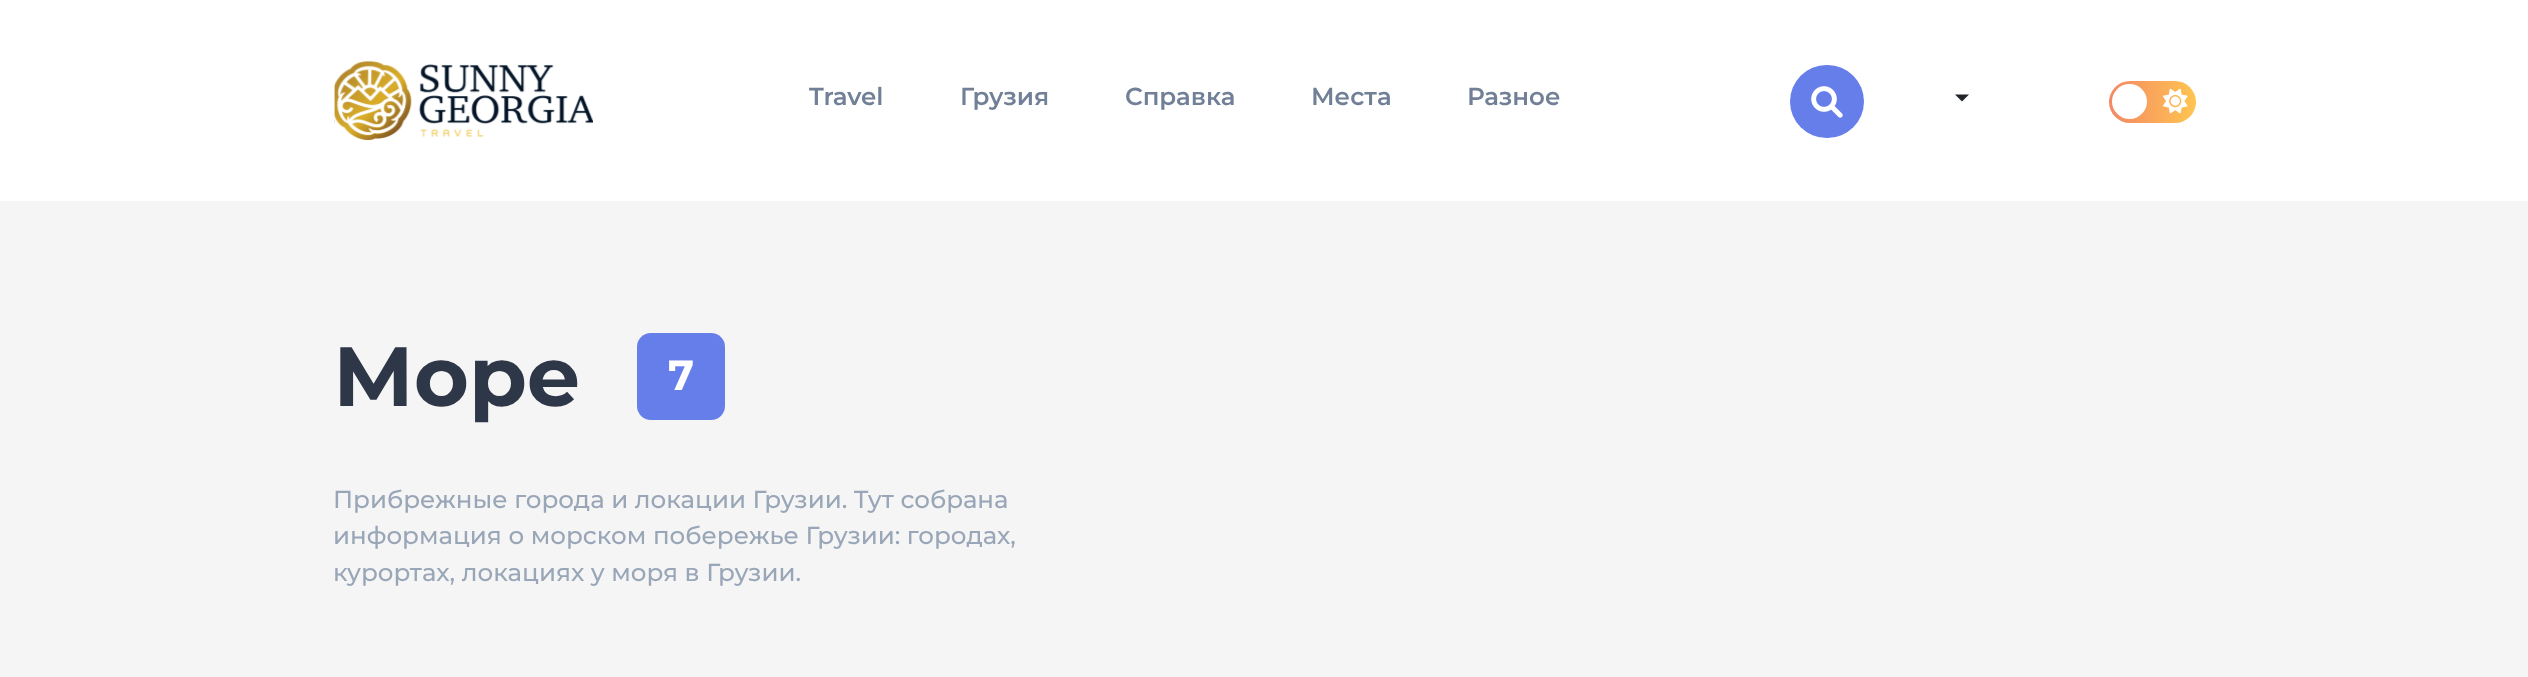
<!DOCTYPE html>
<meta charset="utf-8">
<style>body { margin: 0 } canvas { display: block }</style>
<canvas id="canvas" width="2528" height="677"></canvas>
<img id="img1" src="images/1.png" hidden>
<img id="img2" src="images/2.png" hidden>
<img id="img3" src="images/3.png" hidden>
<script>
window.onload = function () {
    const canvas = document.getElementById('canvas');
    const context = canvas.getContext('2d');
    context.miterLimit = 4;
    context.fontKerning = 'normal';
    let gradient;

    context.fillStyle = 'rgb(255, 255, 255)';
    context.fillRect(0, 0, 2528, 677);
    context.drawImage(document.getElementById('img1'), 334, 61, 259, 79);
    context.fillStyle = 'rgb(102, 126, 234)';
    context.beginPath();
    context.roundRect(1790, 65, 74, 73, 36.5);
    context.fill();
    context.drawImage(document.getElementById('img2'), 1811, 86, 32, 32);
    context.fillStyle = 'rgb(33, 37, 41)';
    context.beginPath();
    context.moveTo(1955, 94.5);
    context.lineTo(1969, 94.5);
    context.lineTo(1962, 101.5);
    context.closePath();
    context.fill();
    gradient = context.createLinearGradient(2109, 102, 2196, 102);
    gradient.addColorStop(0, 'rgb(244, 135, 100)');
    gradient.addColorStop(1, 'rgb(255, 197, 81)');
    context.fillStyle = gradient;
    context.beginPath();
    context.roundRect(2109, 81, 87, 42, 21);
    context.fill();
    context.fillStyle = 'rgb(255, 255, 255)';
    context.beginPath();
    context.arc(2129.5, 101.5, 17.5, 0, 2 * Math.PI);
    context.fill();
    context.drawImage(document.getElementById('img3'), 2163, 88, 25, 26);
    context.fillStyle = 'rgb(245, 245, 245)';
    context.fillRect(0, 201, 2528, 476);
    context.fillStyle = 'rgb(102, 126, 234)';
    context.beginPath();
    context.roundRect(637, 333, 88, 87, 14);
    context.fill();
    context.font = '600 24.5px Montserrat';
    context.fillStyle = 'rgb(113, 128, 150)';
    context.fillText('Travel', 809, 105);
    context.fillText('Грузия', 960, 105);
    context.fillText('Справка', 1125, 105);
    context.fillText('Места', 1311, 105);
    context.fillText('Разное', 1467, 105);
    context.font = 'bold 84px Montserrat';
    context.fillStyle = 'rgb(45, 55, 72)';
    context.fillText('Море', 333, 406);
    context.font = 'bold 42px Montserrat';
    context.fillStyle = 'rgb(255, 255, 255)';
    context.fillText('7', 668, 390);
    context.font = '500 24.5px Montserrat';
    context.fillStyle = 'rgb(153, 166, 183)';
    context.fillText('Прибрежные города и локации Грузии. Тут собрана', 333, 508);
    context.fillText('информация о морском побережье Грузии: городах,', 333, 544);
    context.fillText('курортах, локациях у моря в Грузии.', 333, 581);
};
</script>
